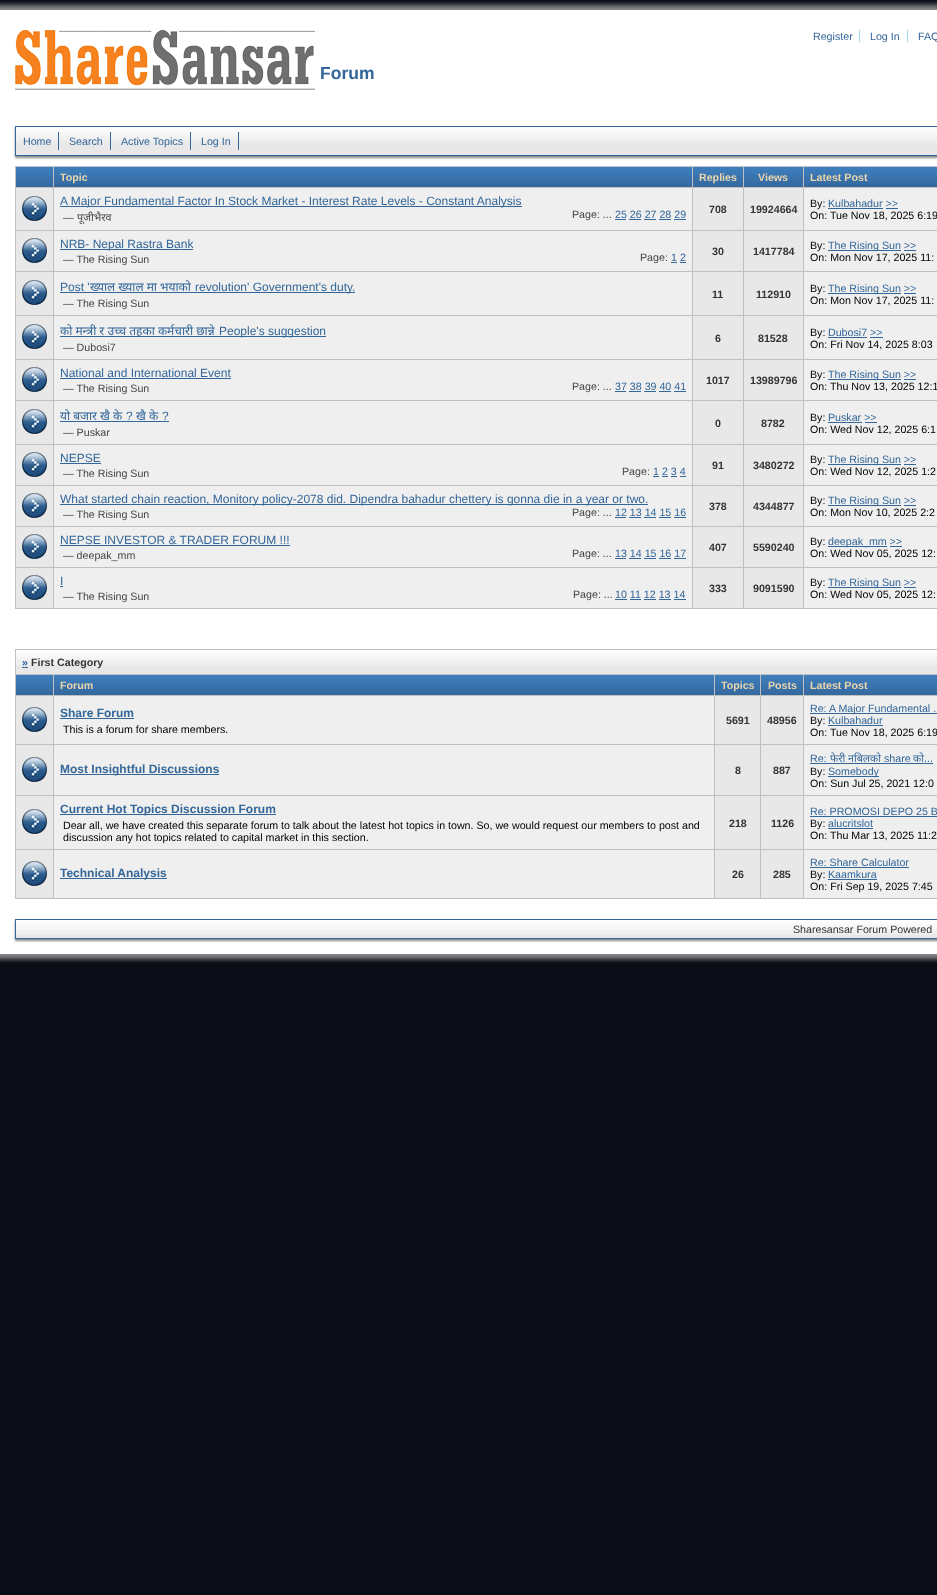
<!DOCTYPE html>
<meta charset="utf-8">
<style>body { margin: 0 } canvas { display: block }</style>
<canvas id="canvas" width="937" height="1595"></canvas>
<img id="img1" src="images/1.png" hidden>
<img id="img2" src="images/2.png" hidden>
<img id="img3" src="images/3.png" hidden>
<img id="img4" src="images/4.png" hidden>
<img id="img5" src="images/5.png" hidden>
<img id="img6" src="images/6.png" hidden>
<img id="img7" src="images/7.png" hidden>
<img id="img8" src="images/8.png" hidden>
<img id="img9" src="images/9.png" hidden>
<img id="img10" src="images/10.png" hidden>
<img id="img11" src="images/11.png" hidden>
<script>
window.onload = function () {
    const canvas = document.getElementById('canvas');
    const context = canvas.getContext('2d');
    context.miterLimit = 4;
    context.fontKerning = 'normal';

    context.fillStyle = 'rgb(10, 13, 22)';
    context.fillRect(0, 0, 937, 1595);
    context.fillStyle = 'rgb(136, 136, 136)';
    context.filter = 'blur(2.5px)';
    context.beginPath();
    context.rect(-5, 5, 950, 954);
    context.fill();
    context.filter = 'none';
    context.fillStyle = 'rgb(255, 255, 255)';
    context.fillRect(0, 10, 937, 944);
    context.drawImage(document.getElementById('img1'), 15, 30, 300, 60);
    context.fillStyle = 'rgb(163, 214, 247)';
    context.fillRect(859, 30, 1, 12);
    context.fillRect(907, 30, 1, 12);
    context.fillStyle = 'rgb(136, 136, 136)';
    context.filter = 'blur(1px)';
    context.beginPath();
    context.rect(15, 128, 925, 30);
    context.fill();
    context.filter = 'none';
    context.fillStyle = 'rgb(232, 232, 232)';
    context.fillRect(16, 142, 921, 13);
    context.drawImage(document.getElementById('img2'), 16, 127, 921, 15);
    context.strokeStyle = 'rgb(51, 102, 153)';
    context.strokeRect(15.5, 126.5, 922, 29);
    context.fillStyle = 'rgb(51, 102, 153)';
    context.fillRect(58, 132, 1, 18);
    context.fillRect(110, 132, 1, 18);
    context.fillRect(190, 132, 1, 18);
    context.fillRect(238, 132, 1, 18);
    context.fillStyle = 'rgb(192, 192, 192)';
    context.fillRect(15, 608, 922, 1);
    context.fillRect(15, 166, 1, 443);
    context.drawImage(document.getElementById('img3'), 16, 167, 37, 20);
    context.fillRect(803, 166, 134, 1);
    context.fillRect(803, 187, 134, 1);
    context.fillRect(803, 230, 134, 1);
    context.fillRect(803, 271, 134, 1);
    context.fillRect(803, 315, 134, 1);
    context.fillRect(803, 359, 134, 1);
    context.fillRect(803, 400, 134, 1);
    context.fillRect(803, 444, 134, 1);
    context.fillRect(803, 485, 134, 1);
    context.fillRect(803, 526, 134, 1);
    context.fillRect(803, 567, 134, 1);
    context.fillRect(803, 567, 1, 42);
    context.fillRect(743, 567, 61, 1);
    context.fillRect(803, 526, 1, 42);
    context.fillRect(743, 526, 61, 1);
    context.fillRect(803, 485, 1, 42);
    context.fillRect(743, 485, 61, 1);
    context.fillRect(803, 444, 1, 42);
    context.fillRect(743, 444, 61, 1);
    context.fillRect(803, 400, 1, 45);
    context.fillRect(743, 400, 61, 1);
    context.fillRect(803, 359, 1, 42);
    context.fillRect(743, 359, 61, 1);
    context.fillRect(803, 315, 1, 45);
    context.fillRect(743, 315, 61, 1);
    context.fillRect(803, 271, 1, 45);
    context.fillRect(743, 271, 61, 1);
    context.fillRect(803, 230, 1, 42);
    context.fillRect(743, 230, 61, 1);
    context.fillRect(803, 187, 1, 44);
    context.fillRect(743, 187, 61, 1);
    context.fillRect(803, 166, 1, 22);
    context.fillRect(743, 166, 61, 1);
    context.fillRect(743, 567, 1, 42);
    context.fillRect(692, 567, 52, 1);
    context.fillRect(743, 526, 1, 42);
    context.fillRect(692, 526, 52, 1);
    context.fillRect(743, 485, 1, 42);
    context.fillRect(692, 485, 52, 1);
    context.fillRect(743, 444, 1, 42);
    context.fillRect(692, 444, 52, 1);
    context.fillRect(743, 400, 1, 45);
    context.fillRect(692, 400, 52, 1);
    context.fillRect(743, 359, 1, 42);
    context.fillRect(692, 359, 52, 1);
    context.fillRect(743, 315, 1, 45);
    context.fillRect(692, 315, 52, 1);
    context.fillRect(743, 271, 1, 45);
    context.fillRect(692, 271, 52, 1);
    context.fillRect(743, 230, 1, 42);
    context.fillRect(692, 230, 52, 1);
    context.fillRect(743, 187, 1, 44);
    context.fillRect(692, 187, 52, 1);
    context.fillRect(743, 166, 1, 22);
    context.fillRect(692, 166, 52, 1);
    context.fillRect(692, 567, 1, 42);
    context.fillRect(53, 567, 640, 1);
    context.fillRect(692, 526, 1, 42);
    context.fillRect(53, 526, 640, 1);
    context.fillRect(692, 485, 1, 42);
    context.fillRect(53, 485, 640, 1);
    context.fillRect(692, 444, 1, 42);
    context.fillRect(53, 444, 640, 1);
    context.fillRect(692, 400, 1, 45);
    context.fillRect(53, 400, 640, 1);
    context.fillRect(692, 359, 1, 42);
    context.fillRect(53, 359, 640, 1);
    context.fillRect(692, 315, 1, 45);
    context.fillRect(53, 315, 640, 1);
    context.fillRect(692, 271, 1, 45);
    context.fillRect(53, 271, 640, 1);
    context.fillRect(692, 230, 1, 42);
    context.fillRect(53, 230, 640, 1);
    context.fillRect(692, 187, 1, 44);
    context.fillRect(53, 187, 640, 1);
    context.fillRect(692, 166, 1, 22);
    context.fillRect(53, 166, 640, 1);
    context.fillRect(53, 567, 1, 42);
    context.fillRect(15, 567, 39, 1);
    context.fillRect(53, 526, 1, 42);
    context.fillRect(15, 526, 39, 1);
    context.fillRect(53, 485, 1, 42);
    context.fillRect(15, 485, 39, 1);
    context.fillRect(53, 444, 1, 42);
    context.fillRect(15, 444, 39, 1);
    context.fillRect(53, 400, 1, 45);
    context.fillRect(15, 400, 39, 1);
    context.fillRect(53, 359, 1, 42);
    context.fillRect(15, 359, 39, 1);
    context.fillRect(53, 315, 1, 45);
    context.fillRect(15, 315, 39, 1);
    context.fillRect(53, 271, 1, 45);
    context.fillRect(15, 271, 39, 1);
    context.fillRect(53, 230, 1, 42);
    context.fillRect(15, 230, 39, 1);
    context.fillRect(53, 187, 1, 44);
    context.fillRect(15, 187, 39, 1);
    context.fillRect(53, 166, 1, 22);
    context.fillRect(15, 166, 39, 1);
    context.drawImage(document.getElementById('img4'), 54, 167, 638, 20);
    context.drawImage(document.getElementById('img5'), 693, 167, 50, 20);
    context.drawImage(document.getElementById('img6'), 744, 167, 59, 20);
    context.drawImage(document.getElementById('img7'), 804, 167, 133, 20);
    context.fillStyle = 'rgb(232, 232, 232)';
    context.fillRect(16, 188, 37, 42);
    context.drawImage(document.getElementById('img8'), 22, 196, 25, 25);
    context.fillStyle = 'rgb(239, 239, 239)';
    context.fillRect(54, 188, 638, 42);
    context.fillStyle = 'rgb(51, 102, 153)';
    context.fillRect(60, 206, 462, 1);
    context.fillRect(615, 219, 11, 1);
    context.fillRect(629, 219, 12, 1);
    context.fillRect(644, 219, 12, 1);
    context.fillRect(659, 219, 12, 1);
    context.fillRect(674, 219, 12, 1);
    context.fillStyle = 'rgb(232, 232, 232)';
    context.fillRect(693, 188, 50, 42);
    context.fillRect(744, 188, 59, 42);
    context.fillStyle = 'rgb(239, 239, 239)';
    context.fillRect(804, 188, 133, 42);
    context.fillStyle = 'rgb(51, 102, 153)';
    context.fillRect(828, 208, 55, 1);
    context.fillRect(886, 208, 12, 1);
    context.fillStyle = 'rgb(232, 232, 232)';
    context.fillRect(16, 231, 37, 40);
    context.drawImage(document.getElementById('img8'), 22, 238, 25, 25);
    context.fillStyle = 'rgb(239, 239, 239)';
    context.fillRect(54, 231, 638, 40);
    context.fillStyle = 'rgb(51, 102, 153)';
    context.fillRect(60, 249, 133, 1);
    context.fillRect(671, 262, 6, 1);
    context.fillRect(680, 262, 6, 1);
    context.fillStyle = 'rgb(232, 232, 232)';
    context.fillRect(693, 231, 50, 40);
    context.fillRect(744, 231, 59, 40);
    context.fillStyle = 'rgb(239, 239, 239)';
    context.fillRect(804, 231, 133, 40);
    context.fillStyle = 'rgb(51, 102, 153)';
    context.fillRect(828, 250, 73, 1);
    context.fillRect(904, 250, 12, 1);
    context.fillStyle = 'rgb(232, 232, 232)';
    context.fillRect(16, 272, 37, 43);
    context.drawImage(document.getElementById('img8'), 22, 280, 25, 25);
    context.fillStyle = 'rgb(239, 239, 239)';
    context.fillRect(54, 272, 638, 43);
    context.fillStyle = 'rgb(51, 102, 153)';
    context.fillRect(60, 292, 295, 1);
    context.fillStyle = 'rgb(232, 232, 232)';
    context.fillRect(693, 272, 50, 43);
    context.fillRect(744, 272, 59, 43);
    context.fillStyle = 'rgb(239, 239, 239)';
    context.fillRect(804, 272, 133, 43);
    context.fillStyle = 'rgb(51, 102, 153)';
    context.fillRect(828, 293, 73, 1);
    context.fillRect(904, 293, 12, 1);
    context.fillStyle = 'rgb(232, 232, 232)';
    context.fillRect(16, 316, 37, 43);
    context.drawImage(document.getElementById('img8'), 22, 324, 25, 25);
    context.fillStyle = 'rgb(239, 239, 239)';
    context.fillRect(54, 316, 638, 43);
    context.fillStyle = 'rgb(51, 102, 153)';
    context.fillRect(60, 336, 266, 1);
    context.fillStyle = 'rgb(232, 232, 232)';
    context.fillRect(693, 316, 50, 43);
    context.fillRect(744, 316, 59, 43);
    context.fillStyle = 'rgb(239, 239, 239)';
    context.fillRect(804, 316, 133, 43);
    context.fillStyle = 'rgb(51, 102, 153)';
    context.fillRect(828, 337, 39, 1);
    context.fillRect(870, 337, 13, 1);
    context.fillStyle = 'rgb(232, 232, 232)';
    context.fillRect(16, 360, 37, 40);
    context.drawImage(document.getElementById('img8'), 22, 367, 25, 25);
    context.fillStyle = 'rgb(239, 239, 239)';
    context.fillRect(54, 360, 638, 40);
    context.fillStyle = 'rgb(51, 102, 153)';
    context.fillRect(60, 378, 171, 1);
    context.fillRect(615, 391, 11, 1);
    context.fillRect(629, 391, 12, 1);
    context.fillRect(644, 391, 12, 1);
    context.fillRect(659, 391, 12, 1);
    context.fillRect(674, 391, 12, 1);
    context.fillStyle = 'rgb(232, 232, 232)';
    context.fillRect(693, 360, 50, 40);
    context.fillRect(744, 360, 59, 40);
    context.fillStyle = 'rgb(239, 239, 239)';
    context.fillRect(804, 360, 133, 40);
    context.fillStyle = 'rgb(51, 102, 153)';
    context.fillRect(828, 379, 73, 1);
    context.fillRect(904, 379, 12, 1);
    context.fillStyle = 'rgb(232, 232, 232)';
    context.fillRect(16, 401, 37, 43);
    context.drawImage(document.getElementById('img8'), 22, 409, 25, 25);
    context.fillStyle = 'rgb(239, 239, 239)';
    context.fillRect(54, 401, 638, 43);
    context.fillStyle = 'rgb(51, 102, 153)';
    context.fillRect(60, 421, 109, 1);
    context.fillStyle = 'rgb(232, 232, 232)';
    context.fillRect(693, 401, 50, 43);
    context.fillRect(744, 401, 59, 43);
    context.fillStyle = 'rgb(239, 239, 239)';
    context.fillRect(804, 401, 133, 43);
    context.fillStyle = 'rgb(51, 102, 153)';
    context.fillRect(828, 422, 34, 1);
    context.fillRect(865, 422, 12, 1);
    context.fillStyle = 'rgb(232, 232, 232)';
    context.fillRect(16, 445, 37, 40);
    context.drawImage(document.getElementById('img8'), 22, 452, 25, 25);
    context.fillStyle = 'rgb(239, 239, 239)';
    context.fillRect(54, 445, 638, 40);
    context.fillStyle = 'rgb(51, 102, 153)';
    context.fillRect(60, 463, 41, 1);
    context.fillRect(653, 476, 6, 1);
    context.fillRect(662, 476, 6, 1);
    context.fillRect(671, 476, 6, 1);
    context.fillRect(680, 476, 6, 1);
    context.fillStyle = 'rgb(232, 232, 232)';
    context.fillRect(693, 445, 50, 40);
    context.fillRect(744, 445, 59, 40);
    context.fillStyle = 'rgb(239, 239, 239)';
    context.fillRect(804, 445, 133, 40);
    context.fillStyle = 'rgb(51, 102, 153)';
    context.fillRect(828, 464, 73, 1);
    context.fillRect(904, 464, 12, 1);
    context.fillStyle = 'rgb(232, 232, 232)';
    context.fillRect(16, 486, 37, 40);
    context.drawImage(document.getElementById('img8'), 22, 493, 25, 25);
    context.fillStyle = 'rgb(239, 239, 239)';
    context.fillRect(54, 486, 638, 40);
    context.fillStyle = 'rgb(51, 102, 153)';
    context.fillRect(60, 504, 588, 1);
    context.fillRect(615, 517, 11, 1);
    context.fillRect(629, 517, 12, 1);
    context.fillRect(644, 517, 12, 1);
    context.fillRect(659, 517, 12, 1);
    context.fillRect(674, 517, 12, 1);
    context.fillStyle = 'rgb(232, 232, 232)';
    context.fillRect(693, 486, 50, 40);
    context.fillRect(744, 486, 59, 40);
    context.fillStyle = 'rgb(239, 239, 239)';
    context.fillRect(804, 486, 133, 40);
    context.fillStyle = 'rgb(51, 102, 153)';
    context.fillRect(828, 505, 73, 1);
    context.fillRect(904, 505, 12, 1);
    context.fillStyle = 'rgb(232, 232, 232)';
    context.fillRect(16, 527, 37, 40);
    context.drawImage(document.getElementById('img8'), 22, 534, 25, 25);
    context.fillStyle = 'rgb(239, 239, 239)';
    context.fillRect(54, 527, 638, 40);
    context.fillStyle = 'rgb(51, 102, 153)';
    context.fillRect(60, 545, 230, 1);
    context.fillRect(615, 558, 11, 1);
    context.fillRect(629, 558, 12, 1);
    context.fillRect(644, 558, 12, 1);
    context.fillRect(659, 558, 12, 1);
    context.fillRect(674, 558, 12, 1);
    context.fillStyle = 'rgb(232, 232, 232)';
    context.fillRect(693, 527, 50, 40);
    context.fillRect(744, 527, 59, 40);
    context.fillStyle = 'rgb(239, 239, 239)';
    context.fillRect(804, 527, 133, 40);
    context.fillStyle = 'rgb(51, 102, 153)';
    context.fillRect(828, 546, 59, 1);
    context.fillRect(890, 546, 12, 1);
    context.fillStyle = 'rgb(232, 232, 232)';
    context.fillRect(16, 568, 37, 40);
    context.drawImage(document.getElementById('img8'), 22, 575, 25, 25);
    context.fillStyle = 'rgb(239, 239, 239)';
    context.fillRect(54, 568, 638, 40);
    context.fillStyle = 'rgb(51, 102, 153)';
    context.fillRect(60, 586, 3, 1);
    context.fillRect(615, 599, 12, 1);
    context.fillRect(630, 599, 11, 1);
    context.fillRect(644, 599, 12, 1);
    context.fillRect(659, 599, 12, 1);
    context.fillRect(674, 599, 12, 1);
    context.fillStyle = 'rgb(232, 232, 232)';
    context.fillRect(693, 568, 50, 40);
    context.fillRect(744, 568, 59, 40);
    context.fillStyle = 'rgb(239, 239, 239)';
    context.fillRect(804, 568, 133, 40);
    context.fillStyle = 'rgb(51, 102, 153)';
    context.fillRect(828, 587, 73, 1);
    context.fillRect(904, 587, 12, 1);
    context.fillStyle = 'rgb(192, 192, 192)';
    context.fillRect(15, 898, 922, 1);
    context.fillRect(15, 649, 1, 250);
    context.fillStyle = 'rgb(232, 232, 232)';
    context.fillRect(16, 665, 921, 9);
    context.drawImage(document.getElementById('img2'), 16, 650, 921, 15);
    context.fillStyle = 'rgb(192, 192, 192)';
    context.fillRect(15, 649, 922, 1);
    context.fillStyle = 'rgb(51, 102, 153)';
    context.fillRect(22, 667, 6, 1);
    context.drawImage(document.getElementById('img3'), 16, 675, 37, 20);
    context.fillStyle = 'rgb(192, 192, 192)';
    context.fillRect(803, 674, 134, 1);
    context.fillRect(803, 695, 134, 1);
    context.fillRect(803, 744, 134, 1);
    context.fillRect(803, 795, 134, 1);
    context.fillRect(803, 849, 134, 1);
    context.fillRect(803, 849, 1, 50);
    context.fillRect(760, 849, 44, 1);
    context.fillRect(803, 795, 1, 55);
    context.fillRect(760, 795, 44, 1);
    context.fillRect(803, 744, 1, 52);
    context.fillRect(760, 744, 44, 1);
    context.fillRect(803, 695, 1, 50);
    context.fillRect(760, 695, 44, 1);
    context.fillRect(803, 674, 1, 22);
    context.fillRect(760, 674, 44, 1);
    context.fillRect(760, 849, 1, 50);
    context.fillRect(714, 849, 47, 1);
    context.fillRect(760, 795, 1, 55);
    context.fillRect(714, 795, 47, 1);
    context.fillRect(760, 744, 1, 52);
    context.fillRect(714, 744, 47, 1);
    context.fillRect(760, 695, 1, 50);
    context.fillRect(714, 695, 47, 1);
    context.fillRect(760, 674, 1, 22);
    context.fillRect(714, 674, 47, 1);
    context.fillRect(714, 849, 1, 50);
    context.fillRect(53, 849, 662, 1);
    context.fillRect(714, 795, 1, 55);
    context.fillRect(53, 795, 662, 1);
    context.fillRect(714, 744, 1, 52);
    context.fillRect(53, 744, 662, 1);
    context.fillRect(714, 695, 1, 50);
    context.fillRect(53, 695, 662, 1);
    context.fillRect(714, 674, 1, 22);
    context.fillRect(53, 674, 662, 1);
    context.fillRect(53, 849, 1, 50);
    context.fillRect(15, 849, 39, 1);
    context.fillRect(53, 795, 1, 55);
    context.fillRect(15, 795, 39, 1);
    context.fillRect(53, 744, 1, 52);
    context.fillRect(15, 744, 39, 1);
    context.fillRect(53, 695, 1, 50);
    context.fillRect(15, 695, 39, 1);
    context.fillRect(53, 674, 1, 22);
    context.fillRect(15, 674, 39, 1);
    context.drawImage(document.getElementById('img9'), 54, 675, 660, 20);
    context.drawImage(document.getElementById('img10'), 715, 675, 45, 20);
    context.drawImage(document.getElementById('img11'), 761, 675, 42, 20);
    context.drawImage(document.getElementById('img7'), 804, 675, 133, 20);
    context.fillStyle = 'rgb(232, 232, 232)';
    context.fillRect(16, 696, 37, 48);
    context.drawImage(document.getElementById('img8'), 22, 707, 25, 25);
    context.fillStyle = 'rgb(239, 239, 239)';
    context.fillRect(54, 696, 660, 48);
    context.fillStyle = 'rgb(51, 102, 153)';
    context.fillRect(60, 718, 74, 1);
    context.fillStyle = 'rgb(232, 232, 232)';
    context.fillRect(715, 696, 45, 48);
    context.fillRect(761, 696, 42, 48);
    context.fillStyle = 'rgb(239, 239, 239)';
    context.fillRect(804, 696, 133, 48);
    context.fillStyle = 'rgb(51, 102, 153)';
    context.fillRect(810, 713, 127, 1);
    context.fillRect(828, 725, 55, 1);
    context.fillStyle = 'rgb(232, 232, 232)';
    context.fillRect(16, 745, 37, 50);
    context.drawImage(document.getElementById('img8'), 22, 757, 25, 25);
    context.fillStyle = 'rgb(239, 239, 239)';
    context.fillRect(54, 745, 660, 50);
    context.fillStyle = 'rgb(51, 102, 153)';
    context.fillRect(60, 774, 159, 1);
    context.fillStyle = 'rgb(232, 232, 232)';
    context.fillRect(715, 745, 45, 50);
    context.fillRect(761, 745, 42, 50);
    context.fillStyle = 'rgb(239, 239, 239)';
    context.fillRect(804, 745, 133, 50);
    context.fillStyle = 'rgb(51, 102, 153)';
    context.fillRect(810, 763, 123, 1);
    context.fillRect(828, 776, 51, 1);
    context.fillStyle = 'rgb(232, 232, 232)';
    context.fillRect(16, 796, 37, 53);
    context.drawImage(document.getElementById('img8'), 22, 809, 25, 25);
    context.fillStyle = 'rgb(239, 239, 239)';
    context.fillRect(54, 796, 660, 53);
    context.fillStyle = 'rgb(51, 102, 153)';
    context.fillRect(60, 814, 216, 1);
    context.fillStyle = 'rgb(232, 232, 232)';
    context.fillRect(715, 796, 45, 53);
    context.fillRect(761, 796, 42, 53);
    context.fillStyle = 'rgb(239, 239, 239)';
    context.fillRect(804, 796, 133, 53);
    context.fillStyle = 'rgb(51, 102, 153)';
    context.fillRect(810, 816, 127, 1);
    context.fillRect(828, 828, 45, 1);
    context.fillStyle = 'rgb(232, 232, 232)';
    context.fillRect(16, 850, 37, 48);
    context.drawImage(document.getElementById('img8'), 22, 861, 25, 25);
    context.fillStyle = 'rgb(239, 239, 239)';
    context.fillRect(54, 850, 660, 48);
    context.fillStyle = 'rgb(51, 102, 153)';
    context.fillRect(60, 878, 107, 1);
    context.fillStyle = 'rgb(232, 232, 232)';
    context.fillRect(715, 850, 45, 48);
    context.fillRect(761, 850, 42, 48);
    context.fillStyle = 'rgb(239, 239, 239)';
    context.fillRect(804, 850, 133, 48);
    context.fillStyle = 'rgb(51, 102, 153)';
    context.fillRect(810, 867, 99, 1);
    context.fillRect(828, 879, 49, 1);
    context.fillStyle = 'rgb(136, 136, 136)';
    context.filter = 'blur(1px)';
    context.beginPath();
    context.rect(15, 921, 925, 20);
    context.fill();
    context.filter = 'none';
    context.fillStyle = 'rgb(232, 232, 232)';
    context.fillRect(16, 935, 921, 3);
    context.drawImage(document.getElementById('img2'), 16, 920, 921, 15);
    context.strokeRect(15.5, 919.5, 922, 19);
    context.font = '10.67px Liberation Sans';
    context.fillStyle = 'rgb(51, 102, 153)';
    context.fillText('Register', 813, 40);
    context.fillText('Log In', 870, 40);
    context.fillText('FAQ', 918, 40);
    context.font = 'bold 17.5px Liberation Sans';
    context.fillText('Forum', 320, 79);
    context.font = '10.67px Liberation Sans';
    context.fillText('Home', 23, 145);
    context.fillText('Search', 69, 145);
    context.fillText('Active Topics', 121, 145);
    context.fillText('Log In', 201, 145);
    context.font = 'bold 10.67px Liberation Sans';
    context.fillStyle = 'rgb(235, 214, 173)';
    context.fillText('Topic', 60, 181);
    context.fillText('Replies', 699, 181);
    context.fillText('Views', 758, 181);
    context.fillText('Latest Post', 810, 181);
    context.font = '12px Liberation Sans';
    context.fillStyle = 'rgb(51, 102, 153)';
    context.fillText('A Major Fundamental Factor In Stock Market - Interest Rate Levels - Constant Analysis', 60, 205);
    context.font = '10.67px Liberation Sans';
    context.fillStyle = 'rgb(68, 68, 68)';
    context.fillText('—', 63, 221);
    context.font = '10.67px Noto Sans';
    context.fillText('पूजीभैरव', 77, 221);
    context.font = '10.67px Liberation Sans';
    context.fillText('Page: ...', 572, 218);
    context.fillStyle = 'rgb(51, 102, 153)';
    context.fillText('25 26 27 28 29', 615, 218);
    context.font = 'bold 10.67px Liberation Sans';
    context.fillStyle = 'rgb(51, 51, 51)';
    context.fillText('708', 709, 213);
    context.fillText('19924664', 750, 213);
    context.font = '10.67px Liberation Sans';
    context.fillStyle = 'rgb(0, 0, 0)';
    context.fillText('By:', 810, 207);
    context.fillStyle = 'rgb(51, 102, 153)';
    context.fillText('Kulbahadur >>', 828, 207);
    context.fillStyle = 'rgb(0, 0, 0)';
    context.fillText('On: Tue Nov 18, 2025 6:19', 810, 219);
    context.font = '12px Liberation Sans';
    context.fillStyle = 'rgb(51, 102, 153)';
    context.fillText('NRB- Nepal Rastra Bank', 60, 248);
    context.font = '10.67px Liberation Sans';
    context.fillStyle = 'rgb(68, 68, 68)';
    context.fillText('— The Rising Sun', 63, 263);
    context.fillText('Page:', 640, 261);
    context.fillStyle = 'rgb(51, 102, 153)';
    context.fillText('1 2', 671, 261);
    context.font = 'bold 10.67px Liberation Sans';
    context.fillStyle = 'rgb(51, 51, 51)';
    context.fillText('30', 712, 255);
    context.fillText('1417784', 753, 255);
    context.font = '10.67px Liberation Sans';
    context.fillStyle = 'rgb(0, 0, 0)';
    context.fillText('By:', 810, 249);
    context.fillStyle = 'rgb(51, 102, 153)';
    context.fillText('The Rising Sun >>', 828, 249);
    context.fillStyle = 'rgb(0, 0, 0)';
    context.fillText('On: Mon Nov 17, 2025 11:', 810, 261);
    context.font = '12px Liberation Sans';
    context.fillStyle = 'rgb(51, 102, 153)';
    context.fillText('Post \'', 60, 291);
    context.font = '12px Noto Sans';
    context.fillText('ख्याल ख्याल मा भयाको', 90, 291);
    context.font = '12px Liberation Sans';
    context.fillText('revolution\' Government\'s duty.', 195, 291);
    context.font = '10.67px Liberation Sans';
    context.fillStyle = 'rgb(68, 68, 68)';
    context.fillText('— The Rising Sun', 63, 307);
    context.font = 'bold 10.67px Liberation Sans';
    context.fillStyle = 'rgb(51, 51, 51)';
    context.fillText('11', 712, 298);
    context.fillText('112910', 756, 298);
    context.font = '10.67px Liberation Sans';
    context.fillStyle = 'rgb(0, 0, 0)';
    context.fillText('By:', 810, 292);
    context.fillStyle = 'rgb(51, 102, 153)';
    context.fillText('The Rising Sun >>', 828, 292);
    context.fillStyle = 'rgb(0, 0, 0)';
    context.fillText('On: Mon Nov 17, 2025 11:', 810, 304);
    context.font = '12px Noto Sans';
    context.fillStyle = 'rgb(51, 102, 153)';
    context.fillText('को मन्त्री र उच्च तहका कर्मचारी छान्ने', 60, 335);
    context.font = '12px Liberation Sans';
    context.fillText('People\'s suggestion', 219, 335);
    context.font = '10.67px Liberation Sans';
    context.fillStyle = 'rgb(68, 68, 68)';
    context.fillText('— Dubosi7', 63, 351);
    context.font = 'bold 10.67px Liberation Sans';
    context.fillStyle = 'rgb(51, 51, 51)';
    context.fillText('6', 715, 342);
    context.fillText('81528', 758, 342);
    context.font = '10.67px Liberation Sans';
    context.fillStyle = 'rgb(0, 0, 0)';
    context.fillText('By:', 810, 336);
    context.fillStyle = 'rgb(51, 102, 153)';
    context.fillText('Dubosi7 >>', 828, 336);
    context.fillStyle = 'rgb(0, 0, 0)';
    context.fillText('On: Fri Nov 14, 2025 8:03', 810, 348);
    context.font = '12px Liberation Sans';
    context.fillStyle = 'rgb(51, 102, 153)';
    context.fillText('National and International Event', 60, 377);
    context.font = '10.67px Liberation Sans';
    context.fillStyle = 'rgb(68, 68, 68)';
    context.fillText('— The Rising Sun', 63, 392);
    context.fillText('Page: ...', 572, 390);
    context.fillStyle = 'rgb(51, 102, 153)';
    context.fillText('37 38 39 40 41', 615, 390);
    context.font = 'bold 10.67px Liberation Sans';
    context.fillStyle = 'rgb(51, 51, 51)';
    context.fillText('1017', 706, 384);
    context.fillText('13989796', 750, 384);
    context.font = '10.67px Liberation Sans';
    context.fillStyle = 'rgb(0, 0, 0)';
    context.fillText('By:', 810, 378);
    context.fillStyle = 'rgb(51, 102, 153)';
    context.fillText('The Rising Sun >>', 828, 378);
    context.fillStyle = 'rgb(0, 0, 0)';
    context.fillText('On: Thu Nov 13, 2025 12:1', 810, 390);
    context.font = '12px Noto Sans';
    context.fillStyle = 'rgb(51, 102, 153)';
    context.fillText('यो बजार खै के', 60, 420);
    context.font = '12px Liberation Sans';
    context.fillText('?', 126, 420);
    context.font = '12px Noto Sans';
    context.fillText('खै के', 136, 420);
    context.font = '12px Liberation Sans';
    context.fillText('?', 162, 420);
    context.font = '10.67px Liberation Sans';
    context.fillStyle = 'rgb(68, 68, 68)';
    context.fillText('— Puskar', 63, 436);
    context.font = 'bold 10.67px Liberation Sans';
    context.fillStyle = 'rgb(51, 51, 51)';
    context.fillText('0', 715, 427);
    context.fillText('8782', 761, 427);
    context.font = '10.67px Liberation Sans';
    context.fillStyle = 'rgb(0, 0, 0)';
    context.fillText('By:', 810, 421);
    context.fillStyle = 'rgb(51, 102, 153)';
    context.fillText('Puskar >>', 828, 421);
    context.fillStyle = 'rgb(0, 0, 0)';
    context.fillText('On: Wed Nov 12, 2025 6:1', 810, 433);
    context.font = '12px Liberation Sans';
    context.fillStyle = 'rgb(51, 102, 153)';
    context.fillText('NEPSE', 60, 462);
    context.font = '10.67px Liberation Sans';
    context.fillStyle = 'rgb(68, 68, 68)';
    context.fillText('— The Rising Sun', 63, 477);
    context.fillText('Page:', 622, 475);
    context.fillStyle = 'rgb(51, 102, 153)';
    context.fillText('1 2 3 4', 653, 475);
    context.font = 'bold 10.67px Liberation Sans';
    context.fillStyle = 'rgb(51, 51, 51)';
    context.fillText('91', 712, 469);
    context.fillText('3480272', 753, 469);
    context.font = '10.67px Liberation Sans';
    context.fillStyle = 'rgb(0, 0, 0)';
    context.fillText('By:', 810, 463);
    context.fillStyle = 'rgb(51, 102, 153)';
    context.fillText('The Rising Sun >>', 828, 463);
    context.fillStyle = 'rgb(0, 0, 0)';
    context.fillText('On: Wed Nov 12, 2025 1:2', 810, 475);
    context.font = '12px Liberation Sans';
    context.fillStyle = 'rgb(51, 102, 153)';
    context.fillText('What started chain reaction, Monitory policy-2078 did. Dipendra bahadur chettery is gonna die in a year or two.', 60, 503);
    context.font = '10.67px Liberation Sans';
    context.fillStyle = 'rgb(68, 68, 68)';
    context.fillText('— The Rising Sun', 63, 518);
    context.fillText('Page: ...', 572, 516);
    context.fillStyle = 'rgb(51, 102, 153)';
    context.fillText('12 13 14 15 16', 615, 516);
    context.font = 'bold 10.67px Liberation Sans';
    context.fillStyle = 'rgb(51, 51, 51)';
    context.fillText('378', 709, 510);
    context.fillText('4344877', 753, 510);
    context.font = '10.67px Liberation Sans';
    context.fillStyle = 'rgb(0, 0, 0)';
    context.fillText('By:', 810, 504);
    context.fillStyle = 'rgb(51, 102, 153)';
    context.fillText('The Rising Sun >>', 828, 504);
    context.fillStyle = 'rgb(0, 0, 0)';
    context.fillText('On: Mon Nov 10, 2025 2:2', 810, 516);
    context.font = '12px Liberation Sans';
    context.fillStyle = 'rgb(51, 102, 153)';
    context.fillText('NEPSE INVESTOR & TRADER FORUM !!!', 60, 544);
    context.font = '10.67px Liberation Sans';
    context.fillStyle = 'rgb(68, 68, 68)';
    context.fillText('— deepak_mm', 63, 559);
    context.fillText('Page: ...', 572, 557);
    context.fillStyle = 'rgb(51, 102, 153)';
    context.fillText('13 14 15 16 17', 615, 557);
    context.font = 'bold 10.67px Liberation Sans';
    context.fillStyle = 'rgb(51, 51, 51)';
    context.fillText('407', 709, 551);
    context.fillText('5590240', 753, 551);
    context.font = '10.67px Liberation Sans';
    context.fillStyle = 'rgb(0, 0, 0)';
    context.fillText('By:', 810, 545);
    context.fillStyle = 'rgb(51, 102, 153)';
    context.fillText('deepak_mm >>', 828, 545);
    context.fillStyle = 'rgb(0, 0, 0)';
    context.fillText('On: Wed Nov 05, 2025 12:', 810, 557);
    context.font = '12px Liberation Sans';
    context.fillStyle = 'rgb(51, 102, 153)';
    context.fillText('I', 60, 585);
    context.font = '10.67px Liberation Sans';
    context.fillStyle = 'rgb(68, 68, 68)';
    context.fillText('— The Rising Sun', 63, 600);
    context.fillText('Page: ...', 573, 598);
    context.fillStyle = 'rgb(51, 102, 153)';
    context.fillText('10 11 12 13 14', 615, 598);
    context.font = 'bold 10.67px Liberation Sans';
    context.fillStyle = 'rgb(51, 51, 51)';
    context.fillText('333', 709, 592);
    context.fillText('9091590', 753, 592);
    context.font = '10.67px Liberation Sans';
    context.fillStyle = 'rgb(0, 0, 0)';
    context.fillText('By:', 810, 586);
    context.fillStyle = 'rgb(51, 102, 153)';
    context.fillText('The Rising Sun >>', 828, 586);
    context.fillStyle = 'rgb(0, 0, 0)';
    context.fillText('On: Wed Nov 05, 2025 12:', 810, 598);
    context.font = 'bold 10.67px Liberation Sans';
    context.fillStyle = 'rgb(51, 102, 153)';
    context.fillText('»', 22, 666);
    context.fillStyle = 'rgb(51, 51, 51)';
    context.fillText('First Category', 31, 666);
    context.fillStyle = 'rgb(235, 214, 173)';
    context.fillText('Forum', 60, 689);
    context.fillText('Topics', 721, 689);
    context.fillText('Posts', 768, 689);
    context.fillText('Latest Post', 810, 689);
    context.font = 'bold 12px Liberation Sans';
    context.fillStyle = 'rgb(51, 102, 153)';
    context.fillText('Share Forum', 60, 717);
    context.font = '10.67px Liberation Sans';
    context.fillStyle = 'rgb(0, 0, 0)';
    context.fillText('This is a forum for share members.', 63, 733);
    context.font = 'bold 10.67px Liberation Sans';
    context.fillStyle = 'rgb(51, 51, 51)';
    context.fillText('5691', 726, 724);
    context.fillText('48956', 767, 724);
    context.font = '10.67px Liberation Sans';
    context.fillStyle = 'rgb(51, 102, 153)';
    context.fillText('Re: A Major Fundamental .', 810, 712);
    context.fillStyle = 'rgb(0, 0, 0)';
    context.fillText('By:', 810, 724);
    context.fillStyle = 'rgb(51, 102, 153)';
    context.fillText('Kulbahadur', 828, 724);
    context.fillStyle = 'rgb(0, 0, 0)';
    context.fillText('On: Tue Nov 18, 2025 6:19', 810, 736);
    context.font = 'bold 12px Liberation Sans';
    context.fillStyle = 'rgb(51, 102, 153)';
    context.fillText('Most Insightful Discussions', 60, 773);
    context.font = 'bold 10.67px Liberation Sans';
    context.fillStyle = 'rgb(51, 51, 51)';
    context.fillText('8', 735, 774);
    context.fillText('887', 773, 774);
    context.font = '10.67px Liberation Sans';
    context.fillStyle = 'rgb(51, 102, 153)';
    context.fillText('Re:', 810, 762);
    context.font = '10.67px Noto Sans';
    context.fillText('फेरी नबिलको', 830, 762);
    context.font = '10.67px Liberation Sans';
    context.fillText('share', 884, 762);
    context.font = '10.67px Noto Sans';
    context.fillText('को', 913, 762);
    context.font = '10.67px Liberation Sans';
    context.fillText('...', 924, 762);
    context.fillStyle = 'rgb(0, 0, 0)';
    context.fillText('By:', 810, 775);
    context.fillStyle = 'rgb(51, 102, 153)';
    context.fillText('Somebody', 828, 775);
    context.fillStyle = 'rgb(0, 0, 0)';
    context.fillText('On: Sun Jul 25, 2021 12:0', 810, 787);
    context.font = 'bold 12px Liberation Sans';
    context.fillStyle = 'rgb(51, 102, 153)';
    context.fillText('Current Hot Topics Discussion Forum', 60, 813);
    context.font = '10.67px Liberation Sans';
    context.fillStyle = 'rgb(0, 0, 0)';
    context.fillText('Dear all, we have created this separate forum to talk about the latest hot topics in town. So, we would request our members to post and', 63, 829);
    context.fillText('discussion any hot topics related to capital market in this section.', 63, 841);
    context.font = 'bold 10.67px Liberation Sans';
    context.fillStyle = 'rgb(51, 51, 51)';
    context.fillText('218', 729, 827);
    context.fillText('1126', 771, 827);
    context.font = '10.67px Liberation Sans';
    context.fillStyle = 'rgb(51, 102, 153)';
    context.fillText('Re: PROMOSI DEPO 25 B', 810, 815);
    context.fillStyle = 'rgb(0, 0, 0)';
    context.fillText('By:', 810, 827);
    context.fillStyle = 'rgb(51, 102, 153)';
    context.fillText('alucritslot', 828, 827);
    context.fillStyle = 'rgb(0, 0, 0)';
    context.fillText('On: Thu Mar 13, 2025 11:2', 810, 839);
    context.font = 'bold 12px Liberation Sans';
    context.fillStyle = 'rgb(51, 102, 153)';
    context.fillText('Technical Analysis', 60, 877);
    context.font = 'bold 10.67px Liberation Sans';
    context.fillStyle = 'rgb(51, 51, 51)';
    context.fillText('26', 732, 878);
    context.fillText('285', 773, 878);
    context.font = '10.67px Liberation Sans';
    context.fillStyle = 'rgb(51, 102, 153)';
    context.fillText('Re: Share Calculator', 810, 866);
    context.fillStyle = 'rgb(0, 0, 0)';
    context.fillText('By:', 810, 878);
    context.fillStyle = 'rgb(51, 102, 153)';
    context.fillText('Kaamkura', 828, 878);
    context.fillStyle = 'rgb(0, 0, 0)';
    context.fillText('On: Fri Sep 19, 2025 7:45', 810, 890);
    context.fillStyle = 'rgb(51, 51, 51)';
    context.fillText('Sharesansar Forum Powered', 793, 933);
};
</script>
